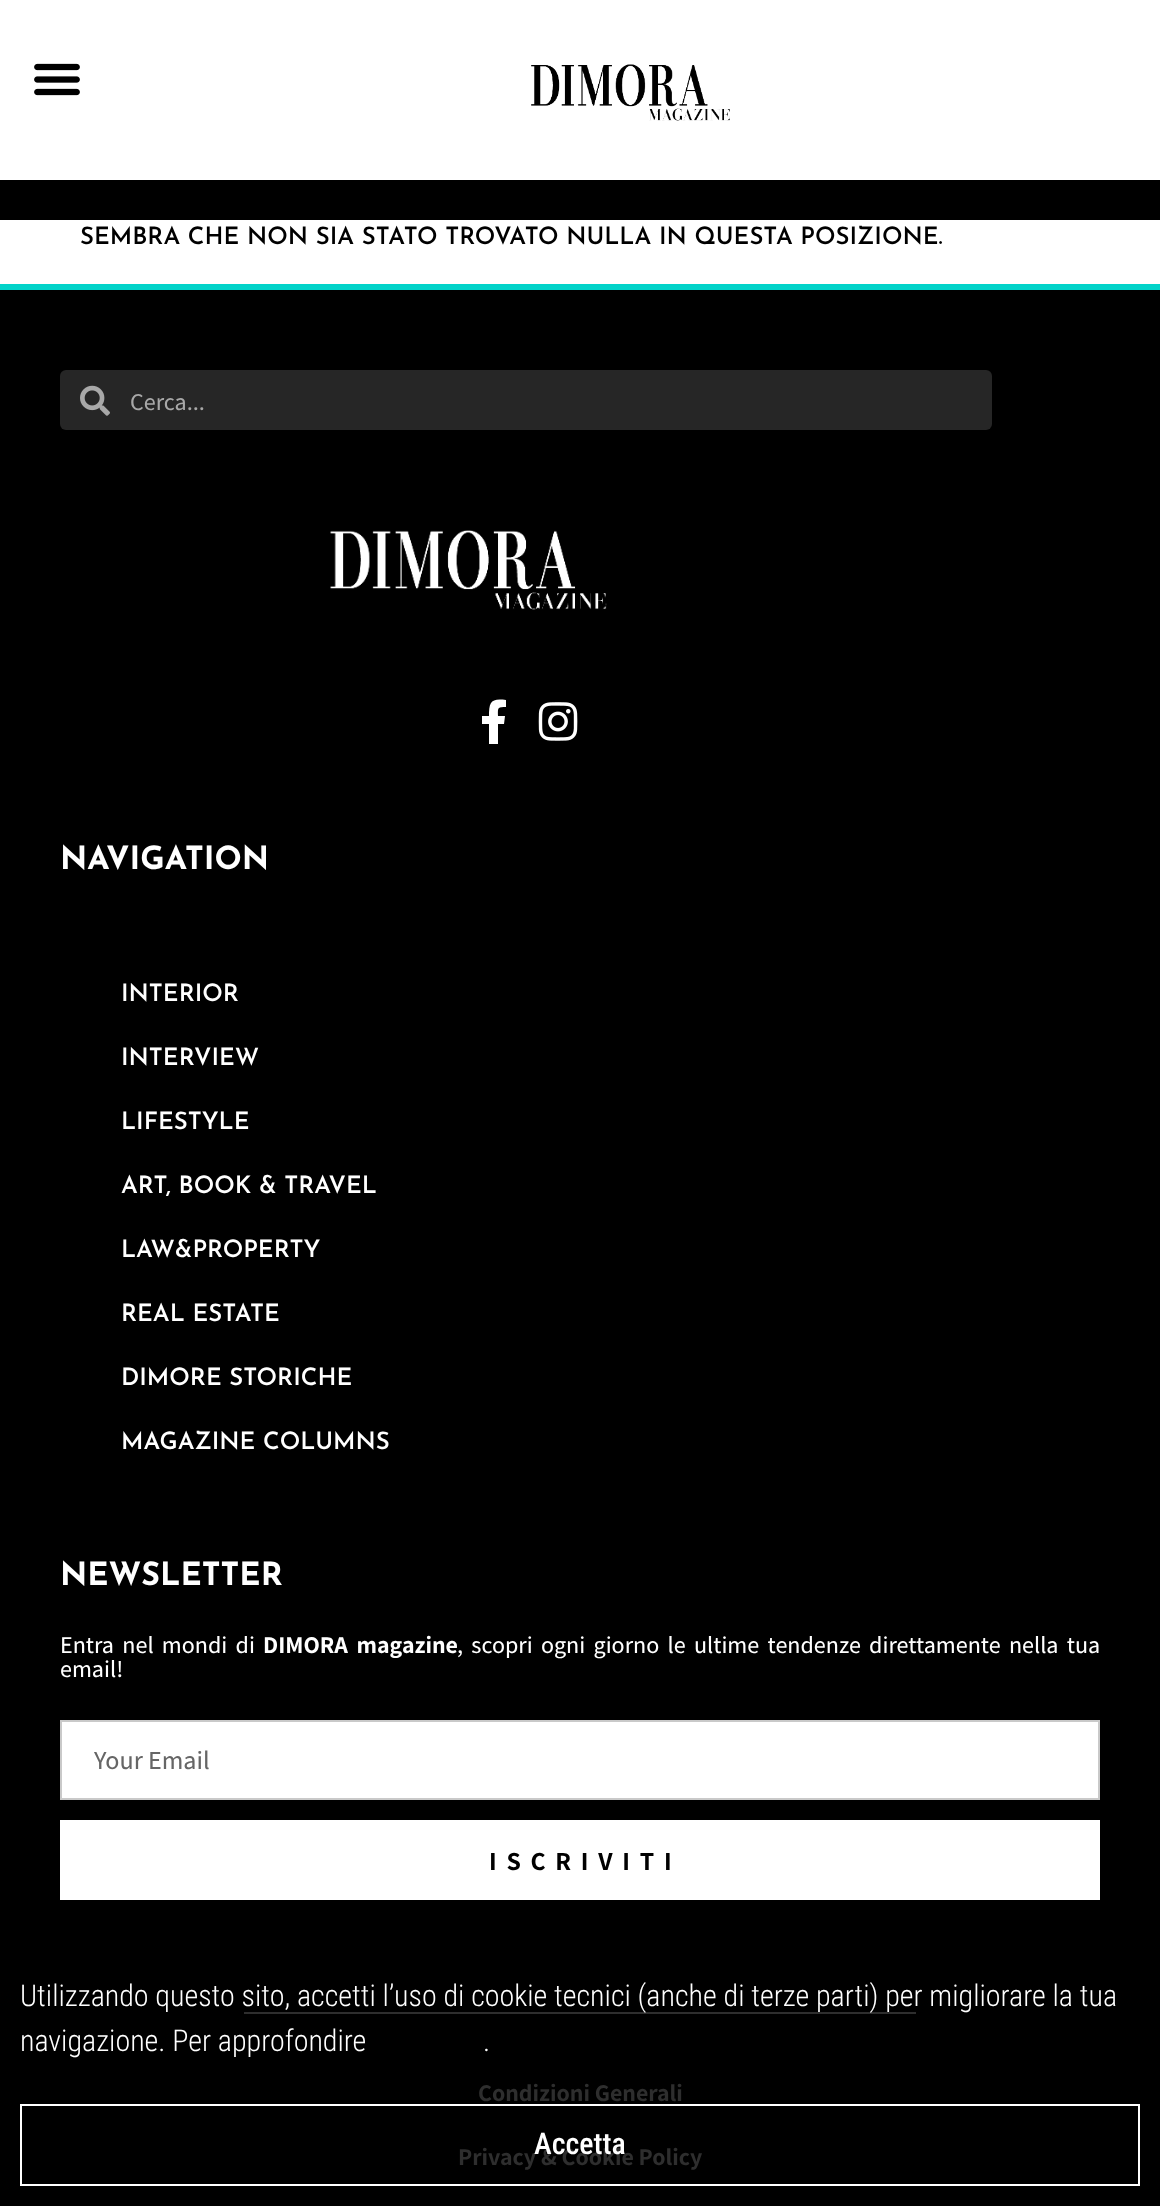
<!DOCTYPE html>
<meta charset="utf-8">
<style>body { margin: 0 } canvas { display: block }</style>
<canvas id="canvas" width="1160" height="2206"></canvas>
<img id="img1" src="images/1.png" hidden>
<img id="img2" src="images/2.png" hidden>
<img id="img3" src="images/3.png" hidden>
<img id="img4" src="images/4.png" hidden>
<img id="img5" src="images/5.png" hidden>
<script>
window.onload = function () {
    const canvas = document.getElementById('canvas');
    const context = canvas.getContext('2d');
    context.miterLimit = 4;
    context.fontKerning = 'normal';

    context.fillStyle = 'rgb(255, 255, 255)';
    context.fillRect(0, 0, 1160, 2206);
    context.drawImage(document.getElementById('img1'), 34, 63, 46, 33);
    context.drawImage(document.getElementById('img2'), 531, 64, 199, 57);
    context.fillStyle = 'rgb(0, 0, 0)';
    context.fillRect(0, 180, 1160, 40);
    context.fillRect(0, 290, 1160, 1916);
    context.fillStyle = 'rgb(2, 211, 201)';
    context.fillRect(0, 284, 1160, 6);
    context.fillStyle = 'rgb(38, 38, 38)';
    context.beginPath();
    context.roundRect(60, 370, 932, 60, 6);
    context.fill();
    context.drawImage(document.getElementById('img3'), 80, 385, 30, 31);
    context.drawImage(document.getElementById('img4'), 330, 530, 277, 80);
    context.fillStyle = 'rgb(255, 255, 255)';
    context.beginPath();
    context.moveTo(504, 724);
    context.lineTo(498, 724);
    context.lineTo(498, 744);
    context.lineTo(489, 744);
    context.lineTo(489, 724);
    context.lineTo(482, 724);
    context.lineTo(482, 716);
    context.lineTo(489, 716);
    context.bezierCurveTo(489, 702, 491, 698, 506, 700);
    context.lineTo(506, 707);
    context.bezierCurveTo(497, 707, 498, 708, 498, 716);
    context.lineTo(505, 716);
    context.closePath();
    context.fill();
    context.drawImage(document.getElementById('img5'), 538, 702, 40, 39);
    context.beginPath();
    context.rect(61, 1721, 1038, 78);
    context.fill();
    context.strokeStyle = 'rgb(201, 201, 201)';
    context.lineWidth = 2;
    context.stroke();
    context.fillRect(60, 1820, 1040, 80);
    context.fillStyle = 'rgb(46, 46, 46)';
    context.fillRect(244, 2012, 672, 2);
    context.strokeStyle = 'rgb(255, 255, 255)';
    context.strokeRect(21, 2105, 1118, 80);
    context.font = '600 24px Josefin Sans';
    context.fillStyle = 'rgb(0, 0, 0)';
    context.fillText('SEMBRA CHE NON SIA STATO TROVATO NULLA IN QUESTA POSIZIONE.', 80, 244);
    context.font = '500 24px Assistant';
    context.fillStyle = 'rgb(168, 168, 168)';
    context.fillText('Cerca...', 130, 410);
    context.font = 'bold 32px Josefin Sans';
    context.fillStyle = 'rgb(255, 255, 255)';
    context.fillText('NAVIGATION', 60, 869);
    context.font = '600 24px Josefin Sans';
    context.fillText('INTERIOR', 121, 1001);
    context.fillText('INTERVIEW', 121, 1065);
    context.fillText('LIFESTYLE', 121, 1129);
    context.fillText('ART, BOOK & TRAVEL', 121, 1193);
    context.fillText('LAW&PROPERTY', 121, 1257);
    context.fillText('REAL ESTATE', 121, 1321);
    context.fillText('DIMORE STORICHE', 121, 1385);
    context.fillText('MAGAZINE COLUMNS', 121, 1449);
    context.font = 'bold 32px Josefin Sans';
    context.fillText('NEWSLETTER', 60, 1585);
    context.wordSpacing = '3.5px';
    context.font = '500 24px Assistant';
    context.fillText('Entra nel mondi di', 60, 1653);
    context.wordSpacing = '4px';
    context.font = 'bold 24px Assistant';
    context.fillText('DIMORA magazine', 263, 1653);
    context.wordSpacing = '3.5px';
    context.font = '500 24px Assistant';
    context.fillText(', scopri ogni giorno le ultime tendenze direttamente nella tua', 457, 1653);
    context.wordSpacing = '0px';
    context.fillText('email!', 60, 1677);
    context.font = '500 26px Assistant';
    context.fillStyle = 'rgb(102, 102, 102)';
    context.fillText('Your Email', 94, 1769);
    context.letterSpacing = '9.75px';
    context.font = 'bold 26px Assistant';
    context.fillStyle = 'rgb(0, 0, 0)';
    context.fillText('ISCRIVITI', 489, 1870);
    context.letterSpacing = '0px';
    context.font = 'bold 24px Assistant';
    context.fillStyle = 'rgb(46, 46, 46)';
    context.fillText('Condizioni Generali', 478, 2101);
    context.fillText('Privacy & Cookie Policy', 458, 2165);
    context.font = '300 30px Roboto Condensed';
    context.fillStyle = 'rgb(255, 255, 255)';
    context.fillText('Utilizzando questo sito, accetti l’uso di cookie tecnici (anche di terze parti) per migliorare la tua', 20, 2006);
    context.fillText('navigazione. Per approfondire', 20, 2051);
    context.fillText('.', 483, 2051);
    context.font = '500 30px Roboto Condensed';
    context.fillText('Accetta', 534, 2154);
};
</script>
